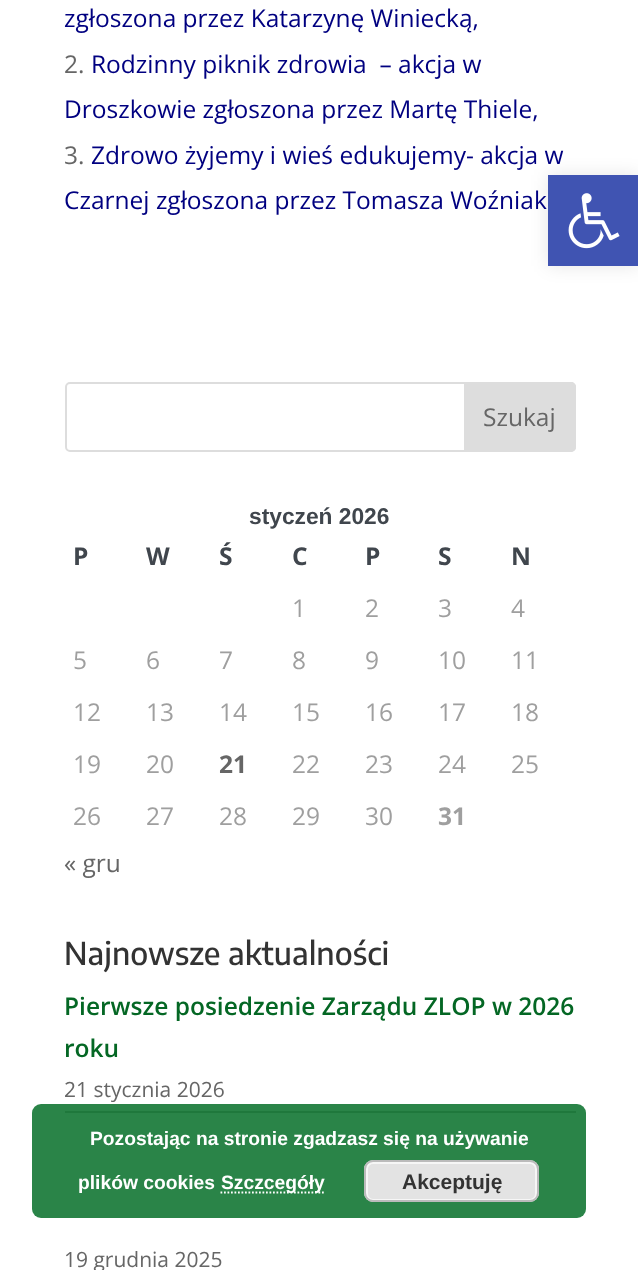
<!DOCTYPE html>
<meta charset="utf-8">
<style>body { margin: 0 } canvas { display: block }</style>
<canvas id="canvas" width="638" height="1270"></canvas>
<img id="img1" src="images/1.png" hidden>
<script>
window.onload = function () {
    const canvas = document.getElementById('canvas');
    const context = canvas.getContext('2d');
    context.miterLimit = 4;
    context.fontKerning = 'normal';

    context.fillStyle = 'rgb(255, 255, 255)';
    context.fillRect(0, 0, 638, 1270);
    context.beginPath();
    context.roundRect(66, 383, 509, 68, 4);
    context.strokeStyle = 'rgb(221, 221, 221)';
    context.lineWidth = 2;
    context.stroke();
    context.fillStyle = 'rgb(221, 221, 221)';
    context.beginPath();
    context.roundRect(465, 383, 110, 68, [0, 4, 4, 0]);
    context.fill();
    context.stroke();
    context.fillStyle = 'rgb(183, 177, 177)';
    context.fillRect(65, 1111, 511, 2);
    context.fillStyle = 'rgba(0, 0, 0, 0.1)';
    context.filter = 'blur(9px)';
    context.beginPath();
    context.rect(548, 175, 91, 91);
    context.fill();
    context.filter = 'none';
    context.fillStyle = 'rgb(64, 84, 178)';
    context.fillRect(548, 175, 90, 91);
    context.drawImage(document.getElementById('img1'), 568, 193, 52, 56);
    context.fillStyle = 'rgba(5, 111, 40, 0.85)';
    context.beginPath();
    context.roundRect(32, 1104, 554, 114, 9);
    context.fill();
    context.beginPath();
    context.moveTo(220.5, 1192.5);
    context.lineTo(324, 1192.5);
    context.strokeStyle = 'rgb(255, 255, 255)';
    context.lineWidth = 1.8;
    context.setLineDash([1.75, 1.75]);
    context.stroke();
    context.fillStyle = 'rgb(227, 227, 227)';
    context.beginPath();
    context.roundRect(364, 1160, 175, 42, 9);
    context.fill();
    context.beginPath();
    context.roundRect(367, 1163, 169, 37, 6);
    context.strokeStyle = 'rgb(246, 246, 246)';
    context.lineWidth = 2;
    context.setLineDash([]);
    context.stroke();
    context.beginPath();
    context.roundRect(365, 1161, 173, 40, 8);
    context.strokeStyle = 'rgb(187, 187, 187)';
    context.stroke();
    context.font = '24.5px Open Sans';
    context.fillStyle = 'rgb(0, 0, 128)';
    context.fillText('zgłoszona przez Katarzynę Winiecką,', 64, 27);
    context.fillStyle = 'rgb(102, 102, 102)';
    context.fillText('2.', 64, 73);
    context.fillStyle = 'rgb(0, 0, 128)';
    context.fillText('Rodzinny piknik zdrowia  – akcja w', 91, 73);
    context.fillText('Droszkowie zgłoszona przez Martę Thiele,', 64, 118);
    context.fillStyle = 'rgb(102, 102, 102)';
    context.fillText('3.', 64, 164);
    context.fillStyle = 'rgb(0, 0, 128)';
    context.fillText('Zdrowo żyjemy i wieś edukujemy- akcja w', 91, 164);
    context.fillText('Czarnej zgłoszona przez Tomasza Woźniak', 64, 209);
    context.fillStyle = 'rgb(102, 102, 102)';
    context.fillText('Szukaj', 483, 426);
    context.font = 'bold 22.75px Liberation Sans';
    context.fillStyle = 'rgb(64, 70, 77)';
    context.fillText('styczeń 2026', 249, 524);
    context.font = 'bold 24.5px Open Sans';
    context.fillText('P', 73, 565);
    context.fillText('W', 146, 565);
    context.fillText('Ś', 219, 565);
    context.fillText('C', 292, 565);
    context.fillText('P', 365, 565);
    context.fillText('S', 438, 565);
    context.fillText('N', 511, 565);
    context.font = '24.5px Open Sans';
    context.fillStyle = 'rgb(159, 159, 159)';
    context.fillText('1', 292, 617);
    context.fillText('2', 365, 617);
    context.fillText('3', 438, 617);
    context.fillText('4', 511, 617);
    context.fillText('5', 73, 669);
    context.fillText('6', 146, 669);
    context.fillText('7', 219, 669);
    context.fillText('8', 292, 669);
    context.fillText('9', 365, 669);
    context.fillText('10', 438, 669);
    context.fillText('11', 511, 669);
    context.fillText('12', 73, 721);
    context.fillText('13', 146, 721);
    context.fillText('14', 219, 721);
    context.fillText('15', 292, 721);
    context.fillText('16', 365, 721);
    context.fillText('17', 438, 721);
    context.fillText('18', 511, 721);
    context.fillText('19', 73, 773);
    context.fillText('20', 146, 773);
    context.font = 'bold 24.5px Open Sans';
    context.fillStyle = 'rgb(102, 102, 102)';
    context.fillText('21', 219, 773);
    context.font = '24.5px Open Sans';
    context.fillStyle = 'rgb(159, 159, 159)';
    context.fillText('22', 292, 773);
    context.fillText('23', 365, 773);
    context.fillText('24', 438, 773);
    context.fillText('25', 511, 773);
    context.fillText('26', 73, 825);
    context.fillText('27', 146, 825);
    context.fillText('28', 219, 825);
    context.fillText('29', 292, 825);
    context.fillText('30', 365, 825);
    context.font = 'bold 24.5px Open Sans';
    context.fillText('31', 438, 825);
    context.font = '24.5px Open Sans';
    context.fillStyle = 'rgb(102, 102, 102)';
    context.fillText('« gru', 64, 872);
    context.font = '100 31.5px Encode Sans Condensed';
    context.fillStyle = 'rgb(51, 51, 51)';
    context.fillText('Najnowsze aktualności', 64, 965);
    context.font = '600 24.5px Open Sans';
    context.fillStyle = 'rgb(4, 103, 36)';
    context.fillText('Pierwsze posiedzenie Zarządu ZLOP w 2026', 64, 1015);
    context.fillText('roku', 64, 1057);
    context.font = '21px Open Sans';
    context.fillStyle = 'rgb(102, 102, 102)';
    context.fillText('21 stycznia 2026', 64, 1097);
    context.fillText('19 grudnia 2025', 64, 1267);
    context.font = 'bold 19.25px Liberation Sans';
    context.fillStyle = 'rgb(255, 255, 255)';
    context.fillText('Pozostając na stronie zgadzasz się na używanie', 90, 1145);
    context.fillText('plików cookies', 78, 1189);
    context.fillText('Szczcegóły', 221, 1189);
    context.font = 'bold 21px Liberation Sans';
    context.fillStyle = 'rgb(51, 51, 51)';
    context.fillText('Akceptuję', 402, 1189);
};
</script>
